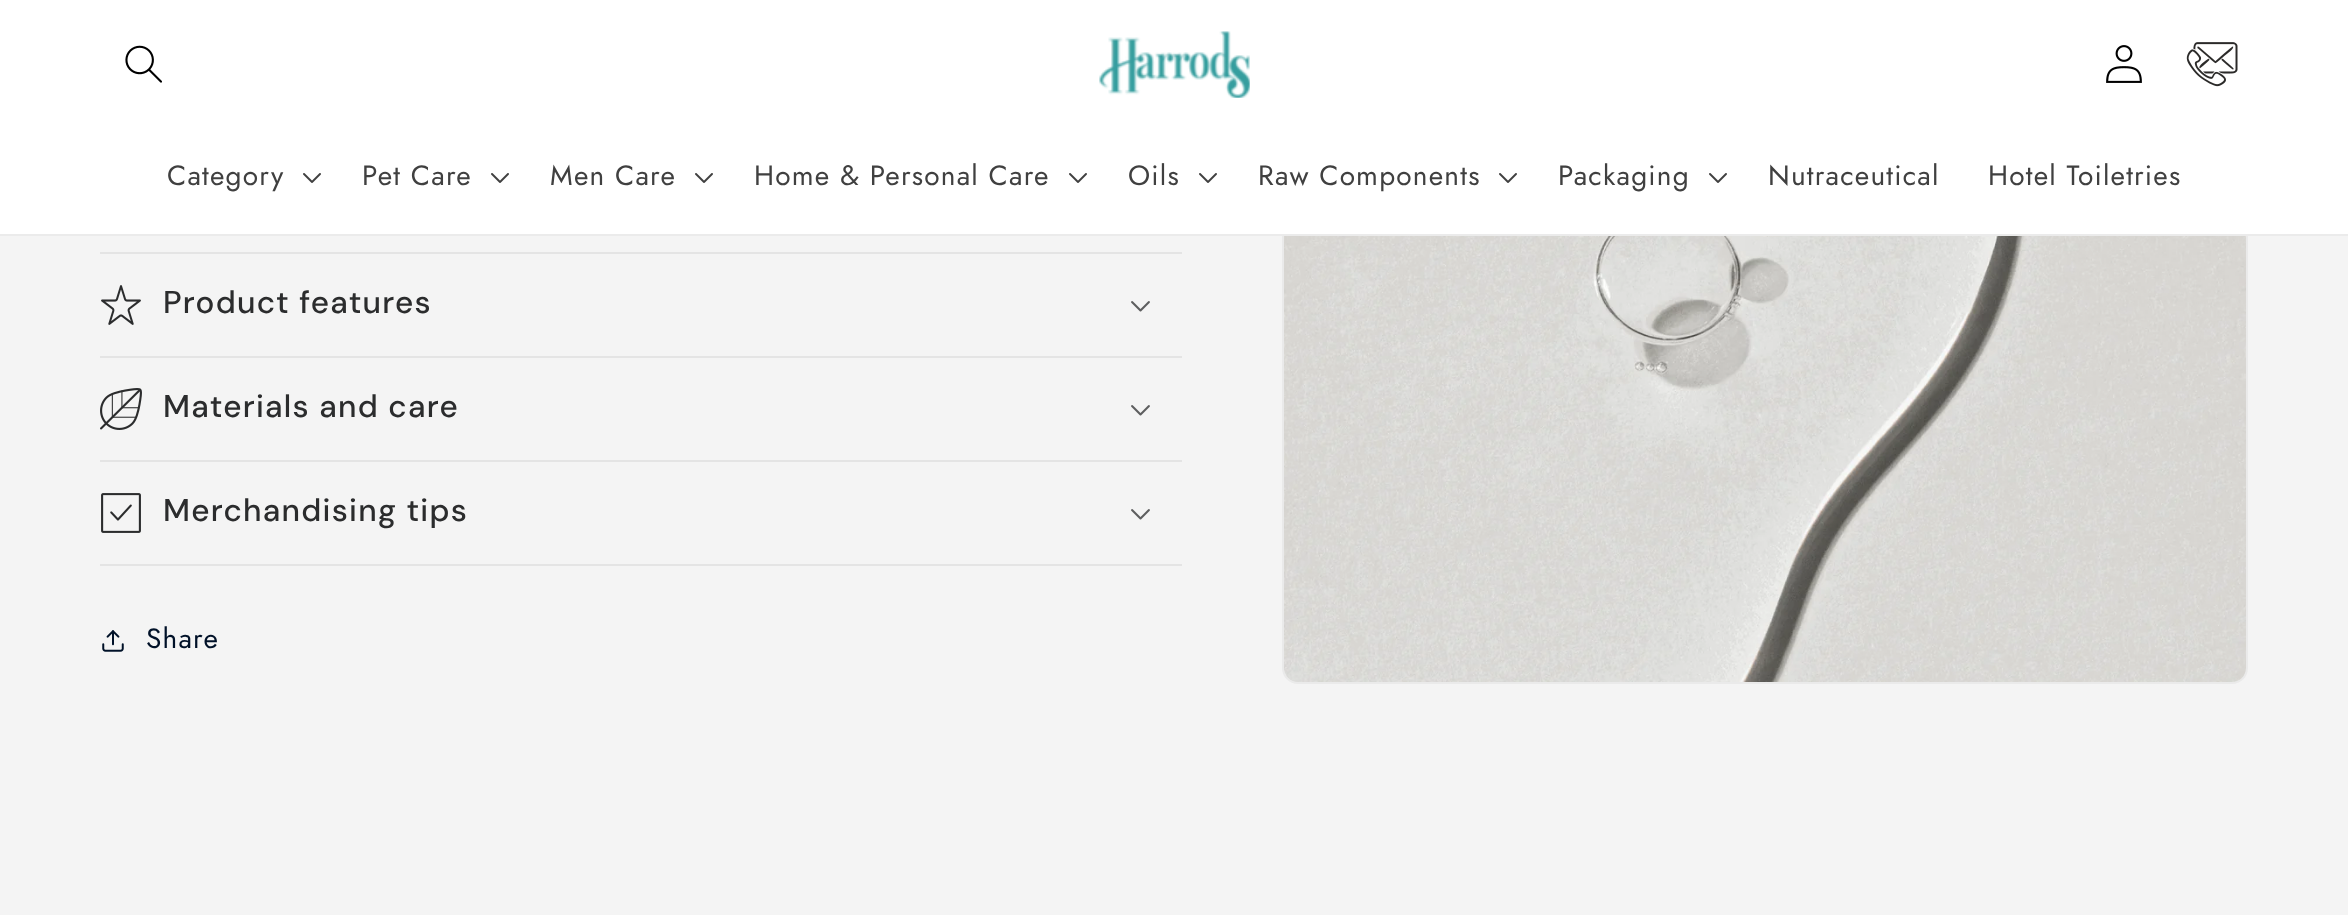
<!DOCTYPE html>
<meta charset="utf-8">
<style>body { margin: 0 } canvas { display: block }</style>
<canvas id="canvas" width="2348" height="915"></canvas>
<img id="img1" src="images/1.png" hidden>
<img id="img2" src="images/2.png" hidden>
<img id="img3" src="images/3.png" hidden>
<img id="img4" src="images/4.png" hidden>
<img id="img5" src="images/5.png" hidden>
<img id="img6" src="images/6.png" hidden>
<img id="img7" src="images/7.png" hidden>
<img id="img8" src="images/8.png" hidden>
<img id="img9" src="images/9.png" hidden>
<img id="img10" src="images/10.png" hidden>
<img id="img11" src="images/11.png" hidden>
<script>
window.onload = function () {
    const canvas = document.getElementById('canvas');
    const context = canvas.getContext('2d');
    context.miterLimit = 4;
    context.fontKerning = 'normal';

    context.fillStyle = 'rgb(244, 244, 244)';
    context.fillRect(0, 0, 2348, 915);
    context.beginPath();
    context.roundRect(1283, -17, 964, 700, 15);
    context.strokeStyle = 'rgb(234, 234, 234)';
    context.lineWidth = 2;
    context.stroke();
    context.fillStyle = 'rgb(255, 255, 255)';
    context.fillRect(0, 0, 2348, 234);
    context.fillStyle = 'rgb(235, 235, 235)';
    context.fillRect(0, 234, 2348, 2);
    context.drawImage(document.getElementById('img1'), 125, 45, 37, 38);
    context.drawImage(document.getElementById('img2'), 1099, 31, 151, 67);
    context.drawImage(document.getElementById('img3'), 2106, 45, 36, 38);
    context.drawImage(document.getElementById('img4'), 2186, 42, 52, 45);
    context.drawImage(document.getElementById('img5'), 303, 173, 18, 10);
    context.drawImage(document.getElementById('img5'), 491, 173, 18, 10);
    context.drawImage(document.getElementById('img5'), 695, 173, 18, 10);
    context.drawImage(document.getElementById('img5'), 1069, 173, 18, 10);
    context.drawImage(document.getElementById('img5'), 1199, 173, 18, 10);
    context.drawImage(document.getElementById('img5'), 1499, 173, 18, 10);
    context.drawImage(document.getElementById('img5'), 1709, 173, 18, 10);
    context.fillStyle = 'rgb(228, 228, 228)';
    context.fillRect(100, 252, 1082, 2);
    context.fillRect(100, 356, 1082, 2);
    context.drawImage(document.getElementById('img6'), 101, 285, 40, 40);
    context.drawImage(document.getElementById('img7'), 1131, 301, 19, 11);
    context.fillRect(100, 460, 1082, 2);
    context.drawImage(document.getElementById('img8'), 100, 388, 42, 42);
    context.drawImage(document.getElementById('img7'), 1131, 405, 19, 11);
    context.fillRect(100, 564, 1082, 2);
    context.drawImage(document.getElementById('img9'), 101, 493, 40, 40);
    context.drawImage(document.getElementById('img7'), 1131, 509, 19, 11);
    context.drawImage(document.getElementById('img10'), 102, 630, 22, 22);
    context.drawImage(document.getElementById('img11'), 1284, 236, 962, 446);
    context.letterSpacing = '1.2px';
    context.font = '28px Jost';
    context.fillStyle = 'rgb(64, 64, 64)';
    context.fillText('Category', 167, 185);
    context.fillText('Pet Care', 362, 185);
    context.fillText('Men Care', 550, 185);
    context.fillText('Home & Personal Care', 754, 185);
    context.fillText('Oils', 1128, 185);
    context.fillText('Raw Components', 1258, 185);
    context.fillText('Packaging', 1558, 185);
    context.fillText('Nutraceutical', 1768, 185);
    context.fillText('Hotel Toiletries', 1988, 185);
    context.letterSpacing = '1.25px';
    context.font = '500 31.5px DM Sans';
    context.fillStyle = 'rgb(43, 44, 45)';
    context.fillText('Product features', 163, 313);
    context.fillText('Materials and care', 163, 417);
    context.fillText('Merchandising tips', 163, 521);
    context.letterSpacing = '1.2px';
    context.font = '28px Jost';
    context.fillStyle = 'rgb(0, 17, 40)';
    context.fillText('Share', 146, 648);
};
</script>
